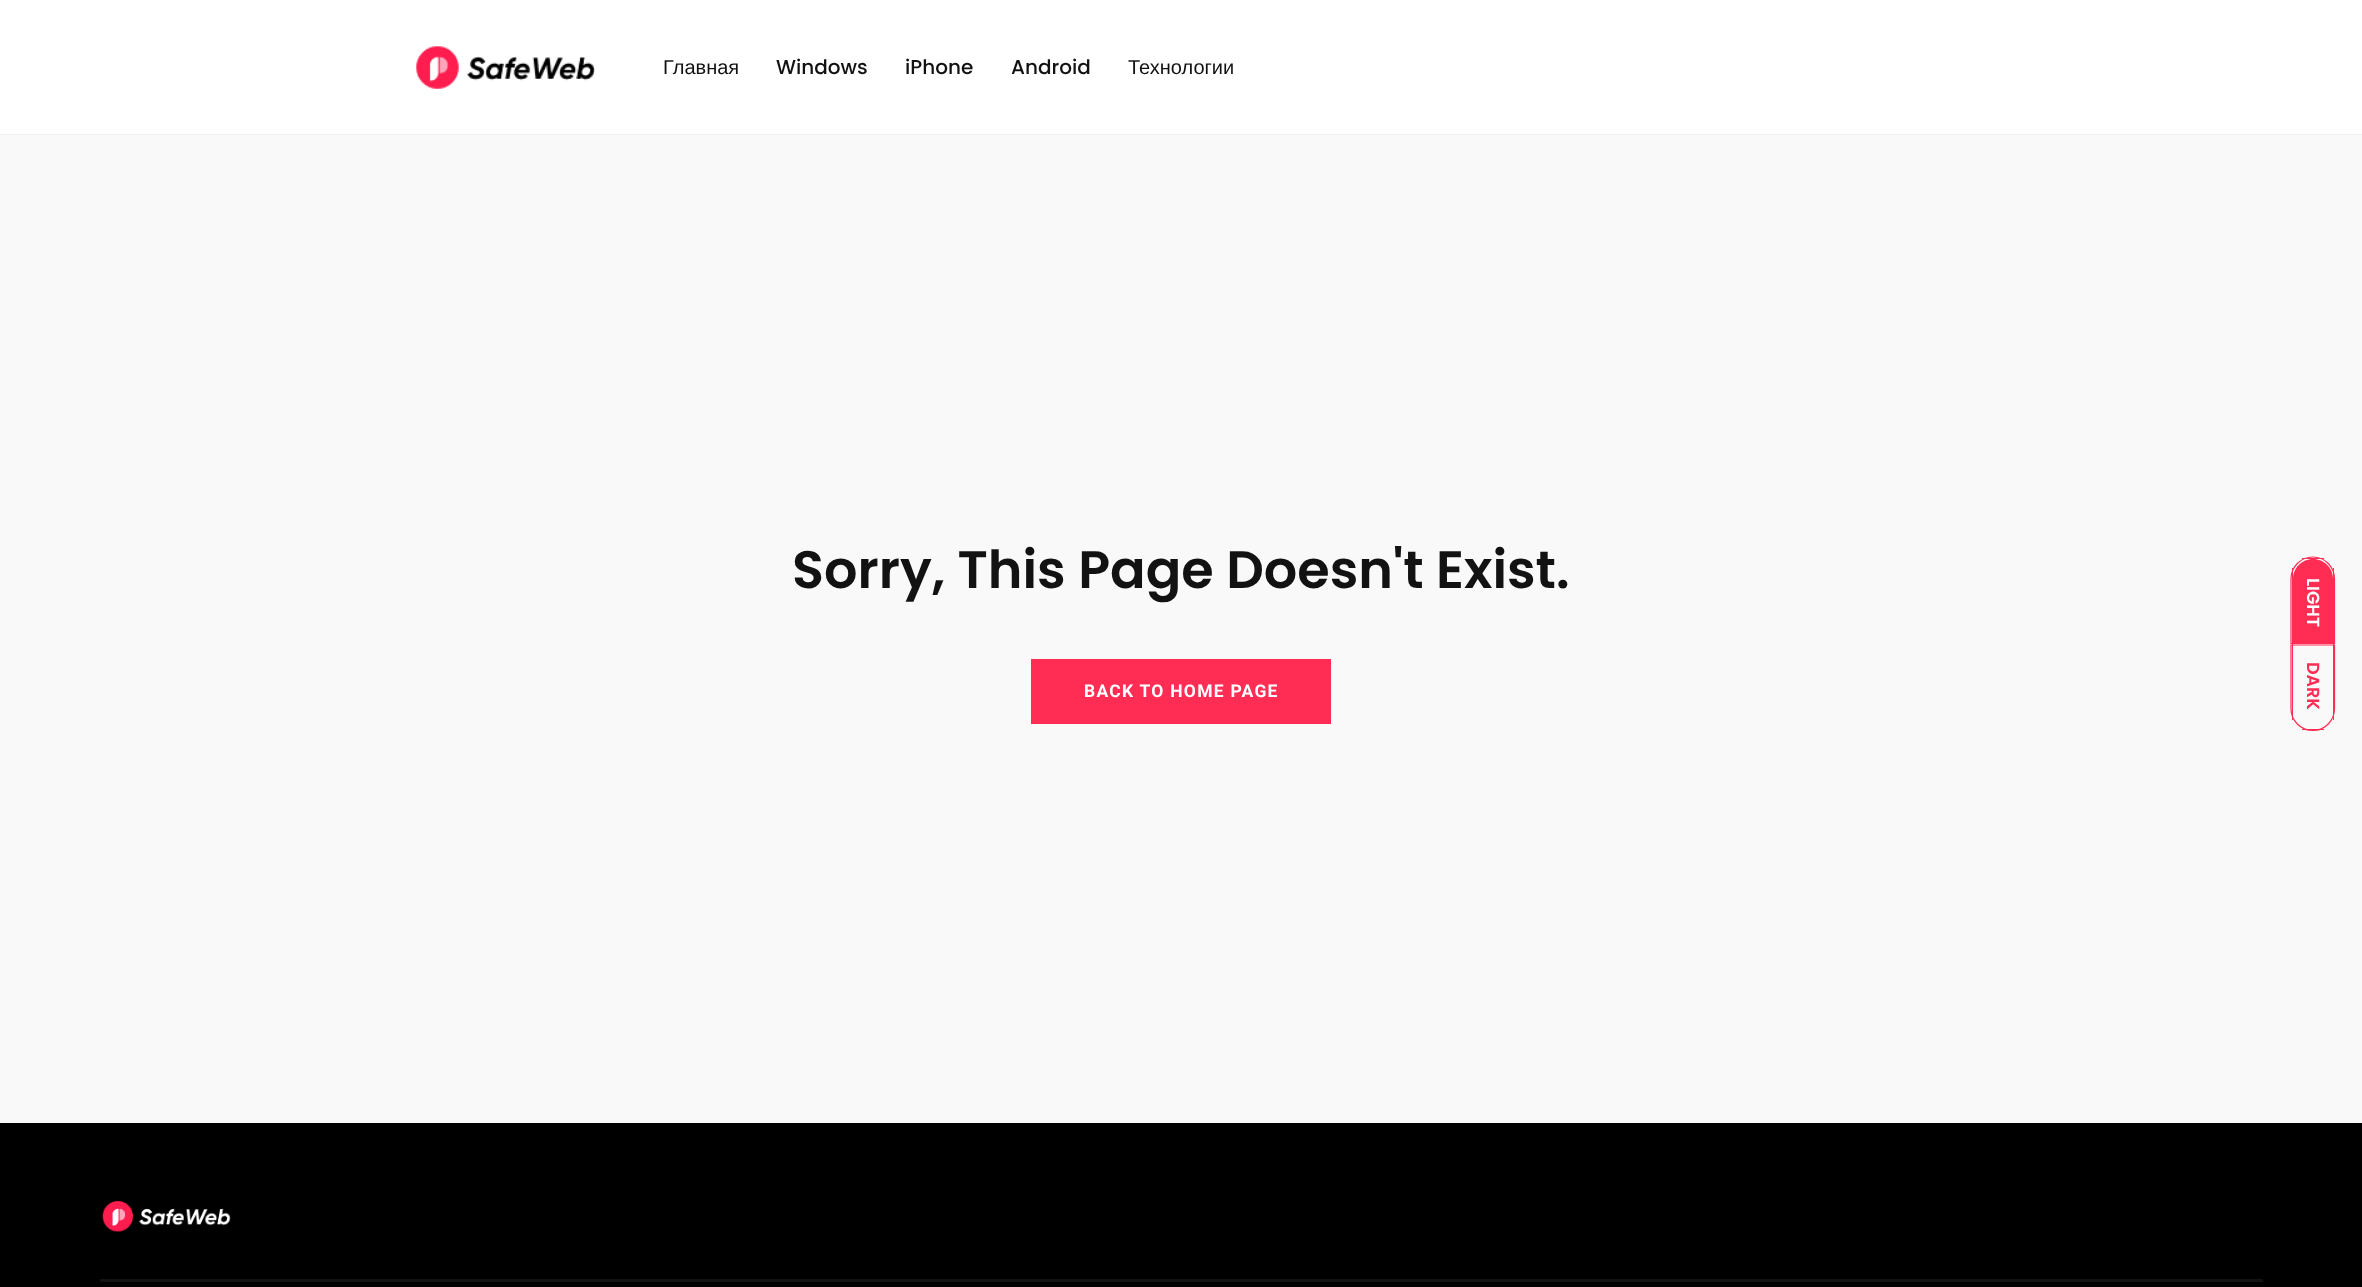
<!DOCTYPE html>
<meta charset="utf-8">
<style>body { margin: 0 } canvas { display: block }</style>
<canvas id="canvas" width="2362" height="1287"></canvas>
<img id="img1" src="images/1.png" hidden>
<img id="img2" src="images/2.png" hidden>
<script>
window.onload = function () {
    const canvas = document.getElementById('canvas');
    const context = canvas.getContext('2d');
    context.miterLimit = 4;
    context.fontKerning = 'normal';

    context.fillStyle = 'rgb(255, 255, 255)';
    context.fillRect(0, 0, 2362, 1287);
    context.fillStyle = 'rgb(240, 240, 240)';
    context.fillRect(0, 134, 2362, 1);
    context.drawImage(document.getElementById('img1'), 416, 46, 179, 43);
    context.fillStyle = 'rgb(249, 249, 249)';
    context.fillRect(0, 135, 2362, 988);
    context.fillStyle = 'rgb(255, 44, 84)';
    context.fillRect(1031, 659, 300, 65);
    context.fillStyle = 'rgb(0, 0, 0)';
    context.fillRect(0, 1123, 2362, 164);
    context.drawImage(document.getElementById('img2'), 102, 1201, 129, 31);
    context.fillStyle = 'rgb(18, 18, 19)';
    context.fillRect(100, 1279, 2163, 3);
    context.fillStyle = 'rgb(255, 44, 84)';
    context.beginPath();
    context.moveTo(2333, 579);
    context.lineTo(2333, 643);
    context.lineTo(2293, 643);
    context.lineTo(2293, 579);
    context.bezierCurveTo(2293, 568, 2302, 559, 2313, 559);
    context.bezierCurveTo(2324, 559, 2333, 568, 2333, 579);
    context.closePath();
    context.fill();
    context.beginPath();
    context.moveTo(2334.5, 579);
    context.lineTo(2334.5, 643.5);
    context.lineTo(2291, 643.5);
    context.lineTo(2291, 579);
    context.bezierCurveTo(2291, 567, 2300.5, 557, 2313, 557);
    context.bezierCurveTo(2325, 557, 2334.5, 567, 2334.5, 579);
    context.closePath();
    context.strokeStyle = 'rgb(255, 44, 84)';
    context.lineWidth = 1.2;
    context.stroke();
    context.fillRect(2333, 568, 1, 76);
    context.fillRect(2292, 568, 1, 76);
    context.fillRect(2302, 558, 22, 1);
    context.beginPath();
    context.moveTo(2334.5, 645);
    context.lineTo(2334.5, 708.5);
    context.bezierCurveTo(2334.5, 720.5, 2325, 730.5, 2313, 730.5);
    context.bezierCurveTo(2300.5, 730.5, 2291, 720.5, 2291, 708.5);
    context.lineTo(2291, 645);
    context.closePath();
    context.stroke();
    context.fillRect(2333, 644, 1, 76);
    context.fillRect(2302, 729, 22, 1);
    context.fillRect(2292, 644, 1, 76);
    context.font = '20px Liberation Sans';
    context.fillStyle = 'rgb(18, 18, 19)';
    context.fillText('Главная', 663, 74);
    context.font = '500 20px Poppins';
    context.fillText('Windows', 776, 74);
    context.fillText('iPhone', 905, 74);
    context.fillText('Android', 1011, 74);
    context.font = '20px Liberation Sans';
    context.fillText('Технологии', 1128, 74);
    context.font = '600 52.5px Poppins';
    context.fillText('Sorry, This Page Doesn\'t Exist.', 792, 588);
    context.letterSpacing = '1.25px';
    context.font = 'bold 17.5px Roboto';
    context.fillStyle = 'rgb(255, 255, 255)';
    context.fillText('BACK TO HOME PAGE', 1084, 697);
    context.letterSpacing = '0px';
    context.font = '600 17.5px Poppins';
    context.save();
    context.translate(2307, 578);
    context.rotate(90 * Math.PI / 180);
    context.fillText('LIGHT', 0, 0);
    context.restore();
    context.fillStyle = 'rgb(255, 44, 84)';
    context.save();
    context.translate(2307, 662);
    context.rotate(90 * Math.PI / 180);
    context.fillText('DARK', 0, 0);
    context.restore();
};
</script>
